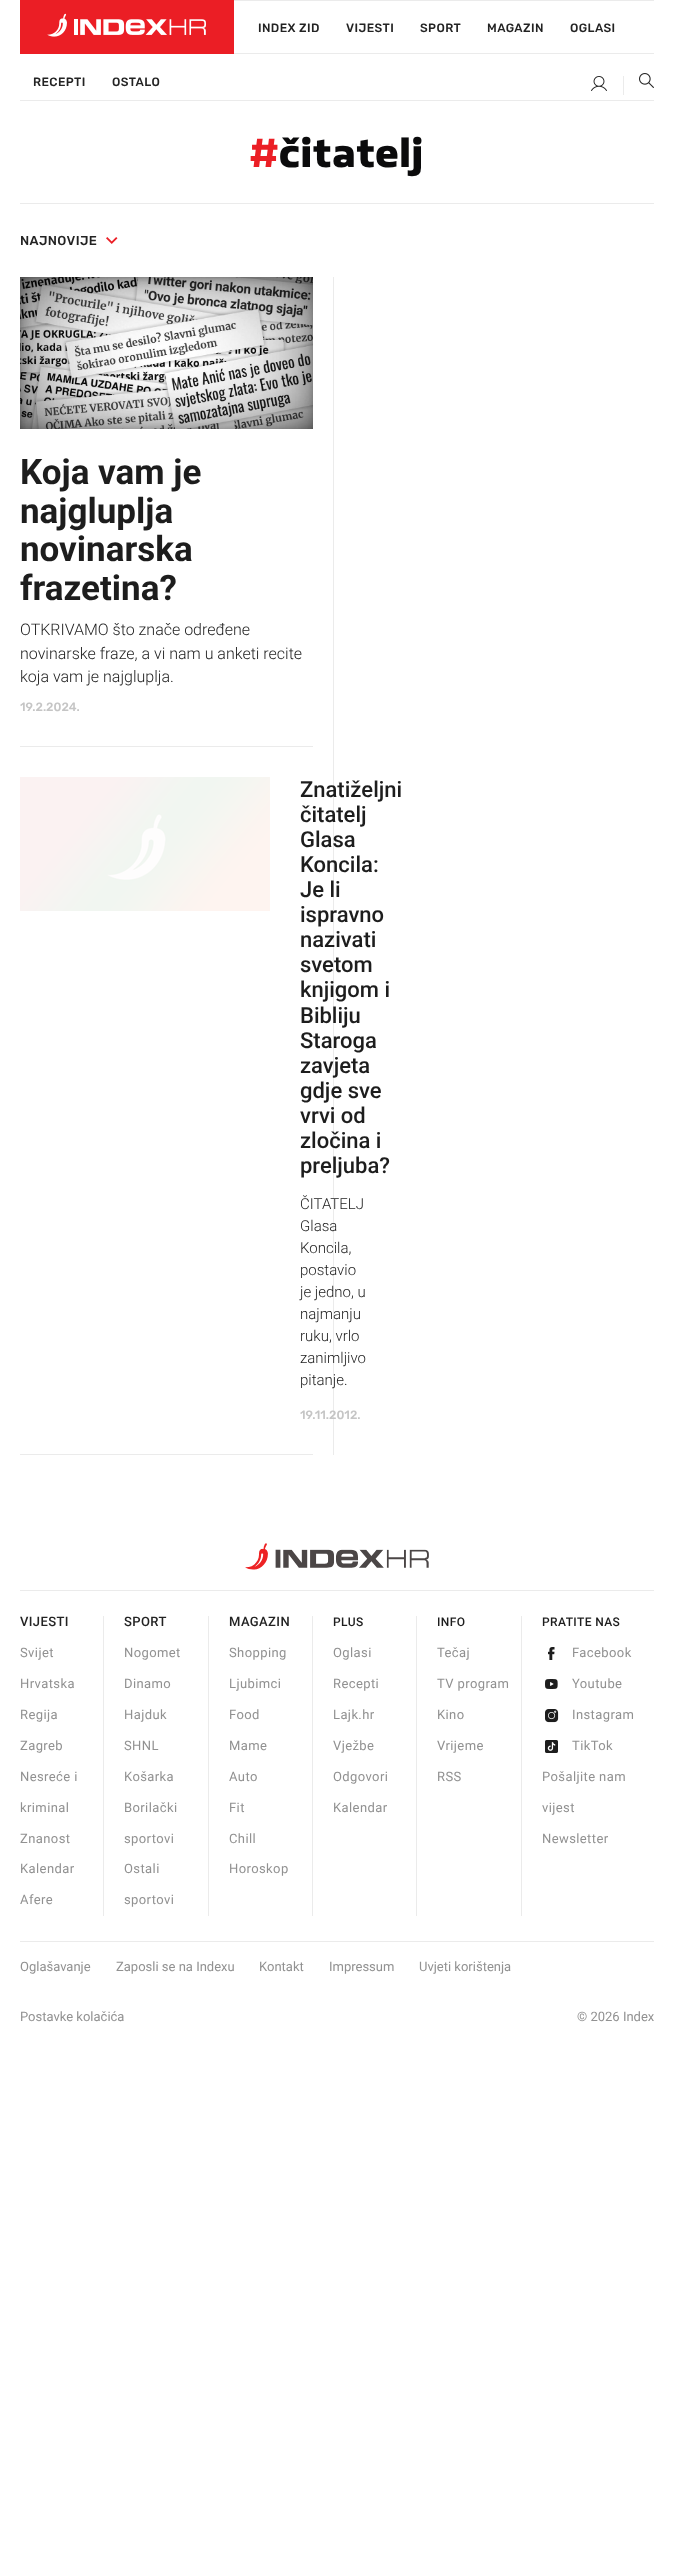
<!DOCTYPE html>
<meta charset="utf-8">
<style>body { margin: 0 } canvas { display: block }</style>
<canvas id="canvas" width="674" height="2563"></canvas>
<img id="img1" src="images/1.png" hidden>
<img id="img2" src="images/2.png" hidden>
<img id="img3" src="images/3.png" hidden>
<img id="img4" src="images/4.png" hidden>
<img id="img5" src="images/5.png" hidden>
<img id="img6" src="images/6.png" hidden>
<img id="img7" src="images/7.png" hidden>
<img id="img8" src="images/8.png" hidden>
<img id="img9" src="images/9.png" hidden>
<img id="img10" src="images/10.png" hidden>
<img id="img11" src="images/11.png" hidden>
<script>
window.onload = function () {
    const canvas = document.getElementById('canvas');
    const context = canvas.getContext('2d');
    context.miterLimit = 4;
    context.fontKerning = 'normal';

    context.fillStyle = 'rgb(255, 255, 255)';
    context.fillRect(0, 0, 674, 2563);
    context.fillStyle = 'rgb(235, 30, 37)';
    context.fillRect(20, 0, 214, 54);
    context.drawImage(document.getElementById('img1'), 47, 13, 159, 24);
    context.fillStyle = 'rgb(235, 235, 235)';
    context.fillRect(234, 0, 420, 1);
    context.fillRect(234, 53, 420, 1);
    context.fillRect(623, 76, 1, 19);
    context.drawImage(document.getElementById('img2'), 591, 76, 16, 15);
    context.drawImage(document.getElementById('img3'), 639, 73, 15, 15);
    context.fillRect(20, 100, 634, 1);
    context.fillRect(20, 203, 634, 1);
    context.drawImage(document.getElementById('img4'), 106, 237, 12, 7);
    context.fillRect(333, 277, 1, 1178);
    context.fillRect(20, 746, 293, 1);
    context.drawImage(document.getElementById('img5'), 20, 277, 293, 152);
    context.fillRect(20, 1454, 293, 1);
    context.drawImage(document.getElementById('img6'), 20, 777, 250, 134);
    context.drawImage(document.getElementById('img7'), 245, 1543, 184, 27);
    context.fillRect(20, 1590, 634, 1);
    context.fillRect(20, 1941, 634, 1);
    context.fillRect(103, 1616, 1, 300);
    context.fillRect(208, 1616, 1, 300);
    context.fillRect(312, 1616, 1, 300);
    context.fillRect(416, 1616, 1, 300);
    context.fillRect(521, 1616, 1, 300);
    context.drawImage(document.getElementById('img8'), 548, 1647, 7, 13);
    context.drawImage(document.getElementById('img9'), 545, 1679, 13, 10);
    context.drawImage(document.getElementById('img10'), 545, 1709, 14, 14);
    context.drawImage(document.getElementById('img11'), 545, 1740, 13, 13);
    context.letterSpacing = '0.4px';
    context.font = '500 12px Rubik';
    context.fillStyle = 'rgb(35, 35, 35)';
    context.fillText('INDEX ZID', 258, 32);
    context.fillText('VIJESTI', 346, 32);
    context.fillText('SPORT', 420, 32);
    context.fillText('MAGAZIN', 487, 32);
    context.fillText('OGLASI', 570, 32);
    context.fillText('RECEPTI', 33, 86);
    context.fillText('OSTALO', 112, 86);
    context.letterSpacing = '1px';
    context.font = '900 42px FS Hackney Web';
    context.fillStyle = 'rgb(235, 30, 37)';
    context.fillText('#', 250, 167);
    context.fillStyle = 'rgb(11, 11, 12)';
    context.fillText('čitatelj', 279, 167);
    context.letterSpacing = '0.4px';
    context.font = '500 13px Rubik';
    context.fillStyle = 'rgb(35, 35, 35)';
    context.fillText('NAJNOVIJE', 20, 245);
    context.letterSpacing = '0px';
    context.font = 'bold 35px Roboto';
    context.fillStyle = 'rgb(29, 29, 29)';
    context.fillText('Koja vam je', 20, 484);
    context.fillText('najgluplja', 20, 523);
    context.fillText('novinarska', 20, 561);
    context.fillText('frazetina?', 20, 600);
    context.font = '300 16px Roboto';
    context.fillText('OTKRIVAMO što znače određene', 20, 635);
    context.fillText('novinarske fraze, a vi nam u anketi recite', 20, 659);
    context.fillText('koja vam je najgluplja.', 20, 682);
    context.font = '500 12px Rubik';
    context.fillStyle = 'rgb(197, 197, 197)';
    context.fillText('19.2.2024.', 20, 711);
    context.font = '500 22px Roboto';
    context.fillStyle = 'rgb(29, 29, 29)';
    context.fillText('Znatiželjni', 300, 797);
    context.fillText('čitatelj', 300, 822);
    context.fillText('Glasa', 300, 847);
    context.fillText('Koncila:', 300, 872);
    context.fillText('Je li', 300, 897);
    context.fillText('ispravno', 300, 922);
    context.fillText('nazivati', 300, 947);
    context.fillText('svetom', 300, 972);
    context.fillText('knjigom i', 300, 997);
    context.fillText('Bibliju', 300, 1023);
    context.fillText('Staroga', 300, 1048);
    context.fillText('zavjeta', 300, 1073);
    context.fillText('gdje sve', 300, 1098);
    context.fillText('vrvi od', 300, 1123);
    context.fillText('zločina i', 300, 1148);
    context.fillText('preljuba?', 300, 1173);
    context.font = '300 15px Roboto';
    context.fillText('ČITATELJ', 300, 1209);
    context.fillText('Glasa', 300, 1231);
    context.fillText('Koncila,', 300, 1253);
    context.fillText('postavio', 300, 1275);
    context.fillText('je jedno, u', 300, 1297);
    context.fillText('najmanju', 300, 1319);
    context.fillText('ruku, vrlo', 300, 1341);
    context.fillText('zanimljivo', 300, 1363);
    context.fillText('pitanje.', 300, 1385);
    context.font = '500 12px Rubik';
    context.fillStyle = 'rgb(197, 197, 197)';
    context.fillText('19.11.2012.', 300, 1419);
    context.letterSpacing = '0.4px';
    context.font = '500 13px Roboto';
    context.fillStyle = 'rgb(35, 35, 35)';
    context.fillText('VIJESTI', 20, 1626);
    context.font = '13px Roboto';
    context.fillStyle = 'rgb(145, 145, 145)';
    context.fillText('Svijet', 20, 1657);
    context.fillText('Hrvatska', 20, 1688);
    context.fillText('Regija', 20, 1719);
    context.fillText('Zagreb', 20, 1750);
    context.fillText('Nesreće i', 20, 1781);
    context.fillText('kriminal', 20, 1812);
    context.fillText('Znanost', 20, 1843);
    context.fillText('Kalendar', 20, 1873);
    context.fillText('Afere', 20, 1904);
    context.font = '500 13px Roboto';
    context.fillStyle = 'rgb(35, 35, 35)';
    context.fillText('SPORT', 124, 1626);
    context.font = '13px Roboto';
    context.fillStyle = 'rgb(145, 145, 145)';
    context.fillText('Nogomet', 124, 1657);
    context.fillText('Dinamo', 124, 1688);
    context.fillText('Hajduk', 124, 1719);
    context.fillText('SHNL', 124, 1750);
    context.fillText('Košarka', 124, 1781);
    context.fillText('Borilački', 124, 1812);
    context.fillText('sportovi', 124, 1843);
    context.fillText('Ostali', 124, 1873);
    context.fillText('sportovi', 124, 1904);
    context.font = '500 13px Roboto';
    context.fillStyle = 'rgb(35, 35, 35)';
    context.fillText('MAGAZIN', 229, 1626);
    context.font = '13px Roboto';
    context.fillStyle = 'rgb(145, 145, 145)';
    context.fillText('Shopping', 229, 1657);
    context.fillText('Ljubimci', 229, 1688);
    context.fillText('Food', 229, 1719);
    context.fillText('Mame', 229, 1750);
    context.fillText('Auto', 229, 1781);
    context.fillText('Fit', 229, 1812);
    context.fillText('Chill', 229, 1843);
    context.fillText('Horoskop', 229, 1873);
    context.font = '500 12px Roboto';
    context.fillStyle = 'rgb(29, 29, 29)';
    context.fillText('PLUS', 333, 1626);
    context.font = '13px Roboto';
    context.fillStyle = 'rgb(145, 145, 145)';
    context.fillText('Oglasi', 333, 1657);
    context.fillText('Recepti', 333, 1688);
    context.fillText('Lajk.hr', 333, 1719);
    context.fillText('Vježbe', 333, 1750);
    context.fillText('Odgovori', 333, 1781);
    context.fillText('Kalendar', 333, 1812);
    context.font = '500 12px Roboto';
    context.fillStyle = 'rgb(29, 29, 29)';
    context.fillText('INFO', 437, 1626);
    context.font = '13px Roboto';
    context.fillStyle = 'rgb(145, 145, 145)';
    context.fillText('Tečaj', 437, 1657);
    context.fillText('TV program', 437, 1688);
    context.fillText('Kino', 437, 1719);
    context.fillText('Vrijeme', 437, 1750);
    context.fillText('RSS', 437, 1781);
    context.font = '500 12px Roboto';
    context.fillStyle = 'rgb(29, 29, 29)';
    context.fillText('PRATITE NAS', 542, 1626);
    context.font = '13px Roboto';
    context.fillStyle = 'rgb(145, 145, 145)';
    context.fillText('Facebook', 572, 1657);
    context.fillText('Youtube', 572, 1688);
    context.fillText('Instagram', 572, 1719);
    context.fillText('TikTok', 572, 1750);
    context.fillText('Pošaljite nam', 542, 1781);
    context.fillText('vijest', 542, 1812);
    context.fillText('Newsletter', 542, 1843);
    context.letterSpacing = '0px';
    context.fillText('Oglašavanje', 20, 1971);
    context.fillText('Zaposli se na Indexu', 116, 1971);
    context.fillText('Kontakt', 259, 1971);
    context.fillText('Impressum', 329, 1971);
    context.fillText('Uvjeti korištenja', 419, 1971);
    context.fillText('Postavke kolačića', 20, 2021);
    context.fillText('© 2026 Index', 577, 2021);
};
</script>
